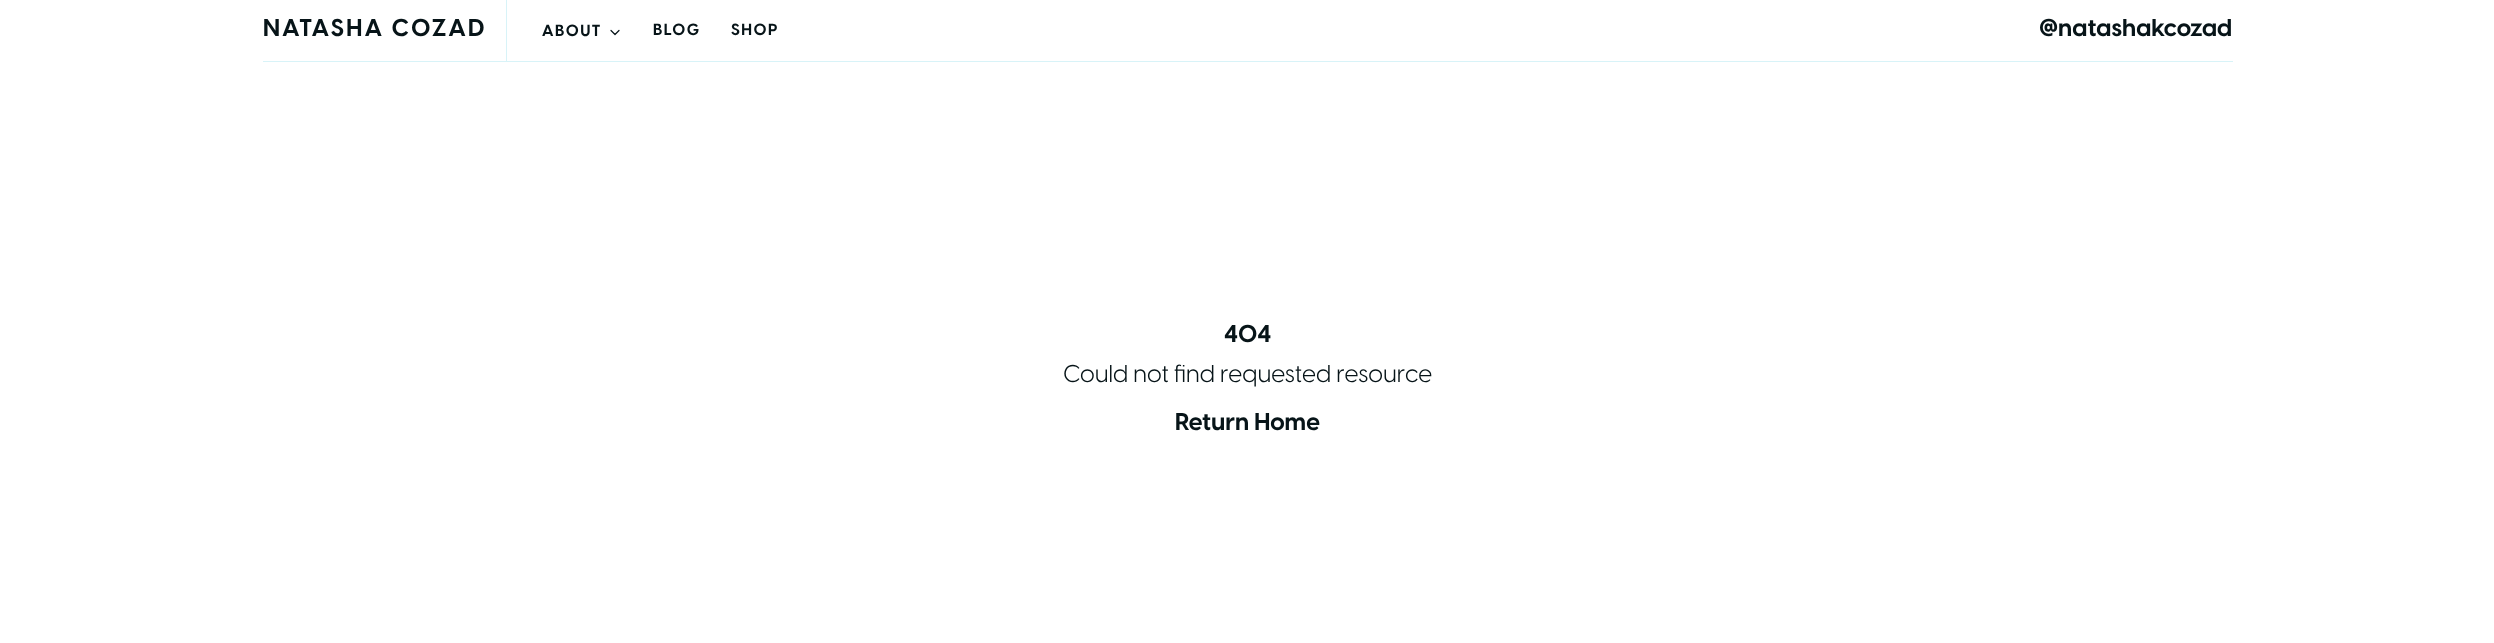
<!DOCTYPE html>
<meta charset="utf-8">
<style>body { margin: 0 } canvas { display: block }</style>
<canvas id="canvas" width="2494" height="643"></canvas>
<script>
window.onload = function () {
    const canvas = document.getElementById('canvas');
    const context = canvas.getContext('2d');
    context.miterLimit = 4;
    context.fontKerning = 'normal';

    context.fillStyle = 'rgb(255, 255, 255)';
    context.fillRect(0, 0, 2494, 643);
    context.fillStyle = 'rgb(216, 243, 248)';
    context.fillRect(263, 61, 1970, 1);
    context.fillRect(506, 0, 1, 61);
    context.beginPath();
    context.moveTo(611, 30.5);
    context.lineTo(615, 34.5);
    context.lineTo(619, 30.5);
    context.strokeStyle = 'rgb(7, 20, 24)';
    context.lineWidth = 1.2;
    context.lineCap = 'round';
    context.lineJoin = 'round';
    context.stroke();
    context.letterSpacing = '2.4px';
    context.font = 'bold 24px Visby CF';
    context.fillStyle = 'rgb(7, 20, 24)';
    context.fillText('NATASHA COZAD', 263, 36);
    context.letterSpacing = '1.5px';
    context.font = 'bold 16px Visby CF';
    context.fillText('ABOUT', 542, 36);
    context.fillText('BLOG', 653, 35);
    context.fillText('SHOP', 731, 35);
    context.letterSpacing = '0px';
    context.font = 'bold 24px Visby CF';
    context.fillText('@natashakcozad', 2039, 36);
    context.fillText('404', 1224, 342);
    context.font = '24px Visby CF';
    context.fillText('Could not find requested resource', 1063, 382);
    context.font = 'bold 24px Visby CF';
    context.fillText('Return Home', 1175, 430);
};
</script>
